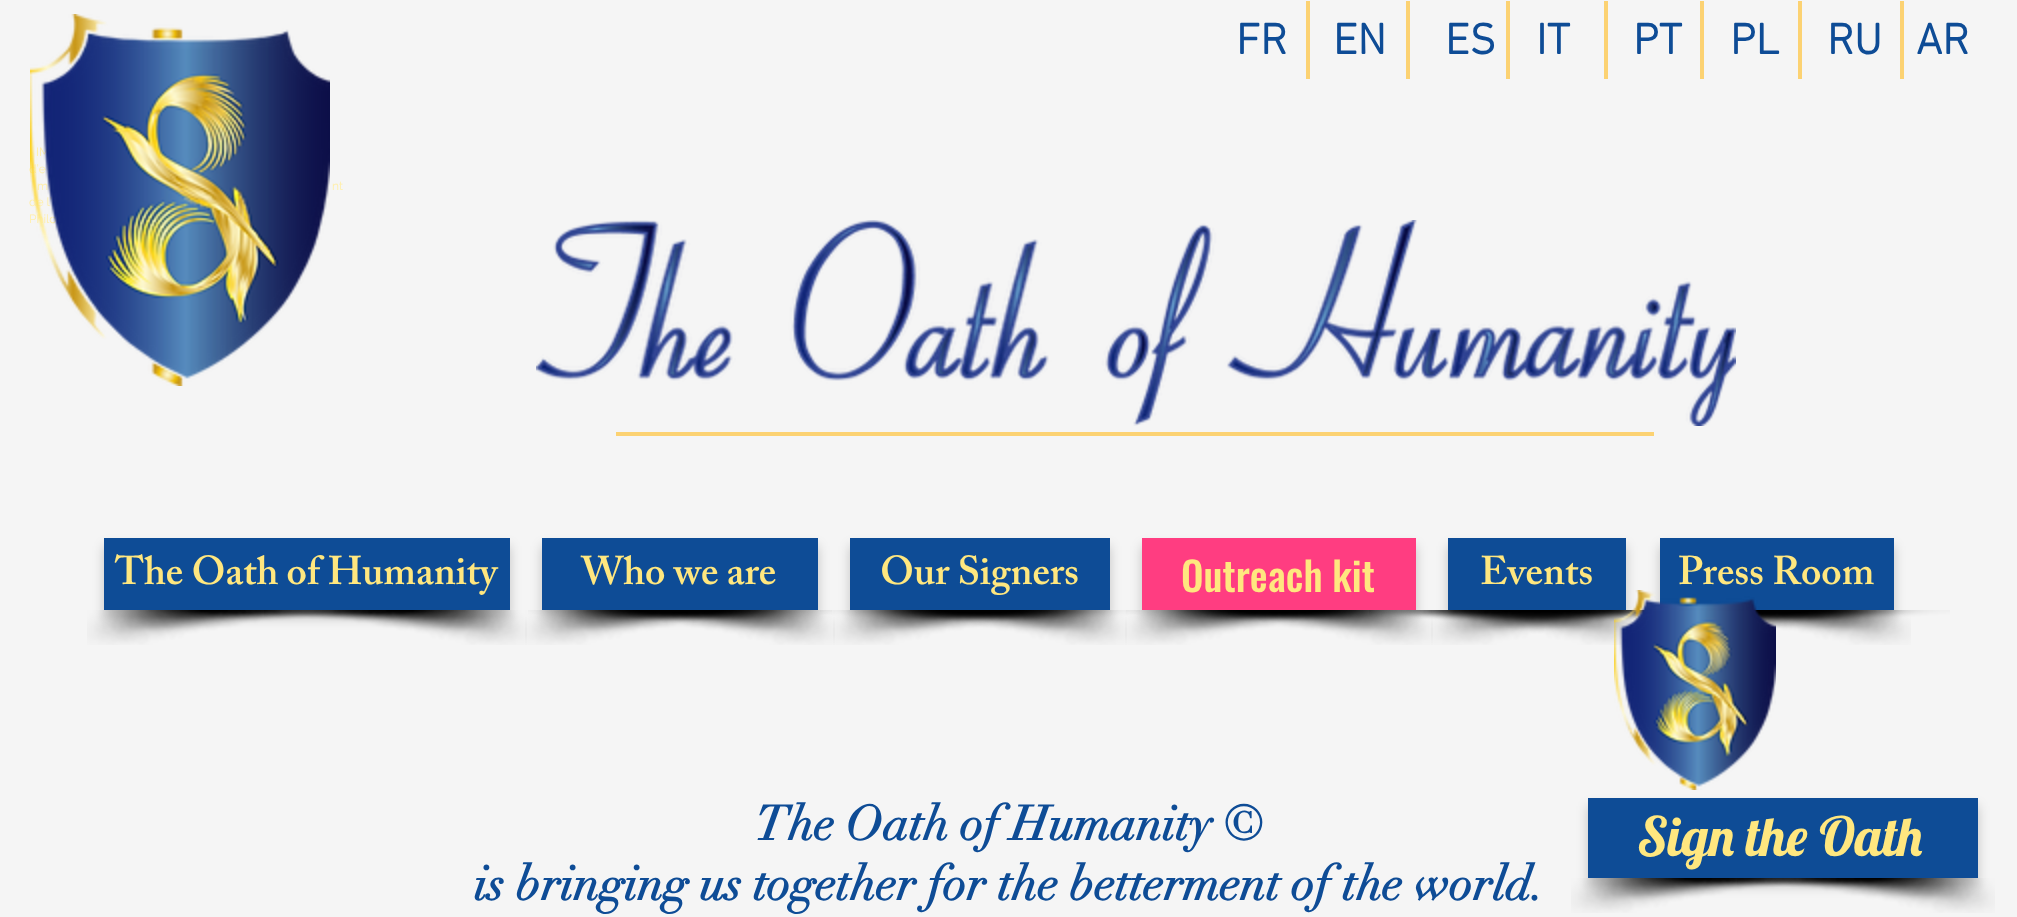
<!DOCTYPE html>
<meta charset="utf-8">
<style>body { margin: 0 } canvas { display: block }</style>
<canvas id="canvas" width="2017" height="917"></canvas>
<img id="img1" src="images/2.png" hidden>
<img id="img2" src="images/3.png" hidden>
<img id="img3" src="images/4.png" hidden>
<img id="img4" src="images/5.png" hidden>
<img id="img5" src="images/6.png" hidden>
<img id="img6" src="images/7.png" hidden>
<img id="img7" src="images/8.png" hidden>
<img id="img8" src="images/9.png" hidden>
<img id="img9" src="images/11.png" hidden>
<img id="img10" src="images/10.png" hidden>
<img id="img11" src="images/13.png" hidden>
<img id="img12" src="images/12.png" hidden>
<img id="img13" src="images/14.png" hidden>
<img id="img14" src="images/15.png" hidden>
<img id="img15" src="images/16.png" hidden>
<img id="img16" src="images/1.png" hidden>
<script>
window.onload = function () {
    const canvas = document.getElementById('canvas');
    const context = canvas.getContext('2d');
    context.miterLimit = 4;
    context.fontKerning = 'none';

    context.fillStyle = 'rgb(245, 245, 245)';
    context.fillRect(0, 0, 2017, 917);
    context.fillStyle = 'rgb(252, 210, 114)';
    context.fillRect(1306, 1, 4, 78);
    context.fillRect(1406, 1, 4, 78);
    context.fillRect(1506, 1, 4, 78);
    context.fillRect(1604, 1, 4, 78);
    context.fillRect(1700, 1, 4, 78);
    context.fillRect(1798, 1, 4, 78);
    context.fillRect(1900, 1, 4, 78);
    context.fillRect(616, 432, 1038, 4);
    context.drawImage(document.getElementById('img1'), 536, 220, 1200, 206);
    context.drawImage(document.getElementById('img2'), 87, 610, 300, 35);
    context.drawImage(document.getElementById('img3'), 264, 610, 263, 35);
    context.fillStyle = 'rgba(0, 0, 0, 0.2)';
    context.filter = 'blur(6px)';
    context.beginPath();
    context.rect(104, 546, 406, 72);
    context.fill();
    context.filter = 'none';
    context.fillStyle = 'rgb(14, 76, 150)';
    context.fillRect(104, 538, 406, 72);
    context.drawImage(document.getElementById('img4'), 525, 610, 307, 35);
    context.drawImage(document.getElementById('img5'), 528, 610, 307, 35);
    context.fillStyle = 'rgba(0, 0, 0, 0.2)';
    context.filter = 'blur(6px)';
    context.beginPath();
    context.rect(542, 546, 276, 72);
    context.fill();
    context.filter = 'none';
    context.fillStyle = 'rgb(14, 76, 150)';
    context.fillRect(542, 538, 276, 72);
    context.drawImage(document.getElementById('img4'), 833, 610, 307, 35);
    context.drawImage(document.getElementById('img6'), 820, 610, 307, 35);
    context.fillStyle = 'rgba(0, 0, 0, 0.2)';
    context.filter = 'blur(6px)';
    context.beginPath();
    context.rect(850, 546, 260, 72);
    context.fill();
    context.filter = 'none';
    context.fillStyle = 'rgb(14, 76, 150)';
    context.fillRect(850, 538, 260, 72);
    context.drawImage(document.getElementById('img7'), 1125, 610, 307, 35);
    context.drawImage(document.getElementById('img8'), 1126, 610, 307, 35);
    context.fillStyle = 'rgba(0, 0, 0, 0.2)';
    context.filter = 'blur(6px)';
    context.beginPath();
    context.rect(1142, 546, 274, 72);
    context.fill();
    context.filter = 'none';
    context.fillStyle = 'rgb(255, 61, 129)';
    context.fillRect(1142, 538, 274, 72);
    context.drawImage(document.getElementById('img9'), 1431, 610, 217, 35);
    context.drawImage(document.getElementById('img10'), 1369, 610, 271, 35);
    context.fillStyle = 'rgba(0, 0, 0, 0.2)';
    context.filter = 'blur(6px)';
    context.beginPath();
    context.rect(1448, 546, 178, 72);
    context.fill();
    context.filter = 'none';
    context.fillStyle = 'rgb(14, 76, 150)';
    context.fillRect(1448, 538, 178, 72);
    context.drawImage(document.getElementById('img11'), 1750, 610, 200, 19);
    context.drawImage(document.getElementById('img12'), 1633, 610, 278, 35);
    context.fillStyle = 'rgba(0, 0, 0, 0.2)';
    context.filter = 'blur(6px)';
    context.beginPath();
    context.rect(1660, 546, 234, 72);
    context.fill();
    context.filter = 'none';
    context.fillStyle = 'rgb(14, 76, 150)';
    context.fillRect(1660, 538, 234, 72);
    context.drawImage(document.getElementById('img13'), 1571, 878, 297, 35);
    context.drawImage(document.getElementById('img14'), 1737, 878, 258, 35);
    context.fillStyle = 'rgba(0, 0, 0, 0.2)';
    context.filter = 'blur(6px)';
    context.beginPath();
    context.rect(1588, 806, 390, 80);
    context.fill();
    context.filter = 'none';
    context.fillStyle = 'rgb(14, 76, 150)';
    context.fillRect(1588, 798, 390, 80);
    context.drawImage(document.getElementById('img15'), 1614, 590, 162, 200);
    context.font = 'bold 44px "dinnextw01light"';
    context.fillText('FR', 1236, 54);
    context.fillText('EN', 1333, 54);
    context.fillText('ES', 1445, 54);
    context.fillText('IT', 1536, 54);
    context.fillText('PT', 1633, 54);
    context.fillText('PL', 1730, 54);
    context.fillText('RU', 1827, 54);
    context.fillText('AR', 1916, 54);
    context.font = '12px Raleway';
    context.fillStyle = 'rgb(255, 239, 170)';
    context.fillText('IM', 36, 156);
    context.fillText('d’e', 29, 173);
    context.fillText('m', 37, 190);
    context.fillText('nt', 332, 190);
    context.fillText('de l’', 29, 206);
    context.fillText('Philo', 29, 223);
    context.drawImage(document.getElementById('img16'), 30, 14, 300, 372);
    context.font = '600 40px "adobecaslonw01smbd"';
    context.fillStyle = 'rgb(255, 231, 127)';
    context.fillText('The Oath of Humanity', 115, 584);
    context.fillText('Who we are', 581, 584);
    context.fillText('Our Signers', 880, 584);
    context.font = '500 40px Oswald';
    context.fillText('Outreach kit', 1181, 592);
    context.font = '600 40px "adobecaslonw01smbd"';
    context.fillText('Events', 1480, 584);
    context.fillText('Press Room', 1678, 584);
    context.font = 'bold 48px didot';
    context.fillStyle = 'rgb(14, 76, 150)';
    context.fillText('The Oath of Humanity ©', 755, 840);
    context.fillText('is bringing us together for the betterment of the world.', 474, 900);
    context.font = '54px Lobster';
    context.fillStyle = 'rgb(255, 231, 127)';
    context.fillText('Sign the Oath', 1637, 856);
};
</script>
